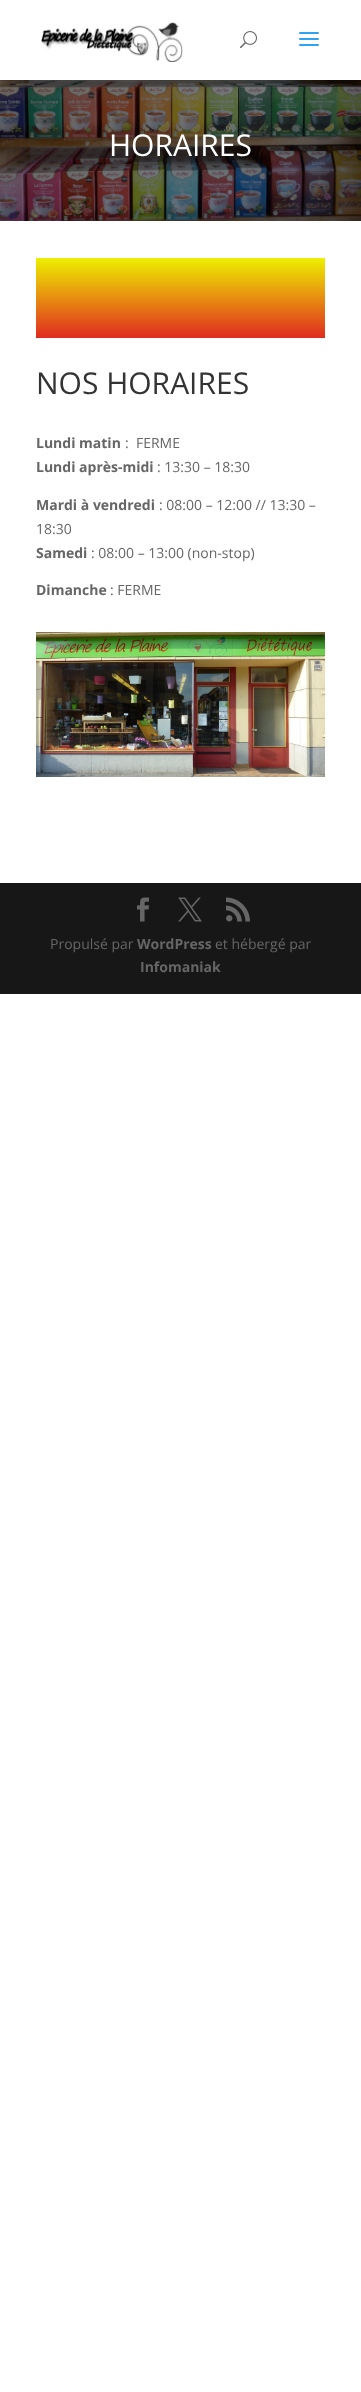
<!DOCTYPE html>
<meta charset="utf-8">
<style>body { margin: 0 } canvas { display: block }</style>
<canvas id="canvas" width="361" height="2392"></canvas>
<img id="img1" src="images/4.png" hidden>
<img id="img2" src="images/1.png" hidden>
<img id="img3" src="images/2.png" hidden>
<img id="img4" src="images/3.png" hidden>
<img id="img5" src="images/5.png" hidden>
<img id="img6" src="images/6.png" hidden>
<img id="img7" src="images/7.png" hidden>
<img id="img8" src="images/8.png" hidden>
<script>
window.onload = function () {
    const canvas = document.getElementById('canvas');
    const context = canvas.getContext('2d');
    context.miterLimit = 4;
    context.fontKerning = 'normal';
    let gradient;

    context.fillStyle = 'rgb(255, 255, 255)';
    context.fillRect(0, 0, 361, 2392);
    context.drawImage(document.getElementById('img1'), 0, 80, 361, 141);
    context.fillStyle = 'rgba(0, 0, 0, 0.1)';
    context.fillRect(0, 80, 361, 1);
    context.drawImage(document.getElementById('img2'), 41, 22, 142, 40);
    context.drawImage(document.getElementById('img3'), 240, 31, 17, 18);
    context.drawImage(document.getElementById('img4'), 299, 32, 20, 14);
    gradient = context.createLinearGradient(181, 258, 181, 338);
    gradient.addColorStop(0, 'rgb(237, 240, 0)');
    gradient.addColorStop(1, 'rgb(224, 43, 32)');
    context.fillStyle = gradient;
    context.fillRect(36, 258, 289, 80);
    context.drawImage(document.getElementById('img5'), 36, 632, 289, 145);
    context.fillStyle = 'rgb(23, 23, 23)';
    context.fillRect(0, 883, 361, 111);
    context.drawImage(document.getElementById('img6'), 137, 897, 12, 25);
    context.drawImage(document.getElementById('img7'), 178, 897, 24, 25);
    context.drawImage(document.getElementById('img8'), 226, 897, 24, 25);
    context.font = '30px Open Sans';
    context.fillStyle = 'rgb(255, 255, 255)';
    context.fillText('HORAIRES', 109, 156);
    context.fillStyle = 'rgb(51, 51, 51)';
    context.fillText('NOS HORAIRES', 36, 394);
    context.font = 'bold 14px Open Sans';
    context.fillStyle = 'rgb(102, 102, 102)';
    context.fillText('Lundi matin', 36, 448);
    context.font = '14px Open Sans';
    context.fillText(':  FERME', 125, 448);
    context.font = 'bold 14px Open Sans';
    context.fillText('Lundi après-midi', 36, 472);
    context.font = '14px Open Sans';
    context.fillText(': 13:30 – 18:30', 157, 472);
    context.font = 'bold 14px Open Sans';
    context.fillText('Mardi à vendredi', 36, 510);
    context.font = '14px Open Sans';
    context.fillText(': 08:00 – 12:00 // 13:30 –', 159, 510);
    context.fillText('18:30', 36, 534);
    context.font = 'bold 14px Open Sans';
    context.fillText('Samedi', 36, 558);
    context.font = '14px Open Sans';
    context.fillText(': 08:00 – 13:00 (non-stop)', 91, 558);
    context.font = 'bold 14px Open Sans';
    context.fillText('Dimanche', 36, 595);
    context.font = '14px Open Sans';
    context.fillText(': FERME', 110, 595);
    context.fillText('Propulsé par', 50, 949);
    context.font = 'bold 14px Open Sans';
    context.fillText('WordPress', 137, 949);
    context.font = '14px Open Sans';
    context.fillText('et hébergé par', 215, 949);
    context.font = 'bold 14px Open Sans';
    context.fillText('Infomaniak', 140, 972);
};
</script>
